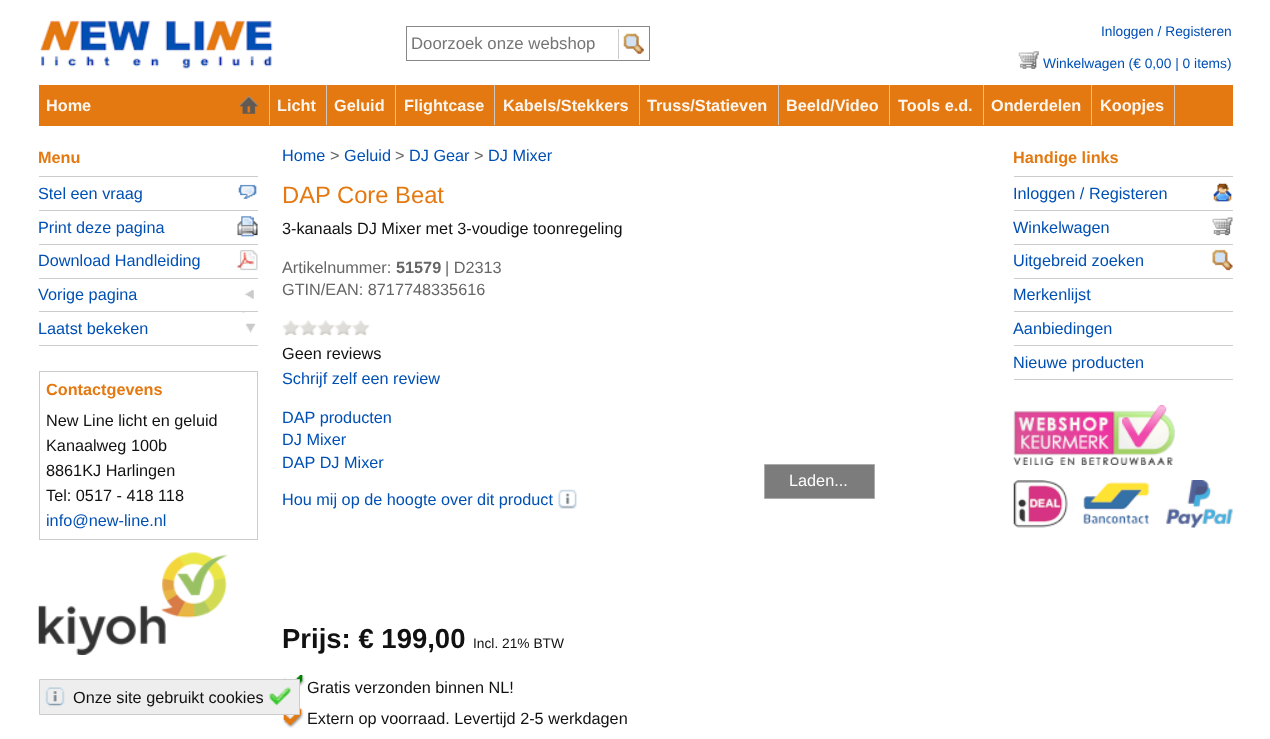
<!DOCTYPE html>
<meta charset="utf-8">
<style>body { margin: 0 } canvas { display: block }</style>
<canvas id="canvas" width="1270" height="739"></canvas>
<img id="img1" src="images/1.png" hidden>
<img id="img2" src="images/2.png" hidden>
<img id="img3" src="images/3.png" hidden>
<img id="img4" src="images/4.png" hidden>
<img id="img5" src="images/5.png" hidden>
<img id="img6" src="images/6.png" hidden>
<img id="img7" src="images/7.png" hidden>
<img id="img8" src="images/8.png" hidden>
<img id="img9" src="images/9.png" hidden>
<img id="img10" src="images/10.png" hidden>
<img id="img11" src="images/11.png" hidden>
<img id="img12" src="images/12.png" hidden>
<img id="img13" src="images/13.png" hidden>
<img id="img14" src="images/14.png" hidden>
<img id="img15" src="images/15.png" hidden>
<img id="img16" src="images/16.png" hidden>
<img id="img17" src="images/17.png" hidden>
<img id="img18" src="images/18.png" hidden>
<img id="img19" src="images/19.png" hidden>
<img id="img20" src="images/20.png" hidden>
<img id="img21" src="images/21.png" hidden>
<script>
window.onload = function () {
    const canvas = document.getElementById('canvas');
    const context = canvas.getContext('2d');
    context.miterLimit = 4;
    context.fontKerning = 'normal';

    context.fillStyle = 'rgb(255, 255, 255)';
    context.fillRect(0, 0, 1270, 739);
    context.drawImage(document.getElementById('img1'), 40, 20, 233, 49);
    context.strokeStyle = 'rgb(136, 136, 136)';
    context.strokeRect(406.5, 26.5, 243, 34);
    context.drawImage(document.getElementById('img2'), 623, 33, 21, 21);
    context.fillStyle = 'rgb(204, 204, 204)';
    context.fillRect(618, 29, 1, 30);
    context.drawImage(document.getElementById('img3'), 1018, 51, 21, 18);
    context.fillStyle = 'rgb(228, 121, 17)';
    context.fillRect(39, 85, 1194, 41);
    context.drawImage(document.getElementById('img4'), 239, 96, 19, 18);
    context.fillStyle = 'rgb(206, 198, 191)';
    context.fillRect(269, 85, 1, 40);
    context.fillRect(326, 85, 1, 40);
    context.fillRect(395, 85, 1, 40);
    context.fillRect(494, 85, 1, 40);
    context.fillRect(639, 85, 1, 40);
    context.fillRect(778, 85, 1, 40);
    context.fillRect(889, 85, 1, 40);
    context.fillRect(983, 85, 1, 40);
    context.fillRect(1091, 85, 1, 40);
    context.fillRect(1174, 85, 1, 40);
    context.fillStyle = 'rgb(204, 204, 204)';
    context.fillRect(39, 176, 219, 1);
    context.drawImage(document.getElementById('img5'), 238, 184, 19, 15);
    context.fillRect(39, 210, 219, 1);
    context.drawImage(document.getElementById('img6'), 237, 216, 21, 21);
    context.fillRect(39, 244, 219, 1);
    context.drawImage(document.getElementById('img7'), 237, 250, 21, 21);
    context.fillRect(39, 278, 219, 1);
    context.drawImage(document.getElementById('img8'), 242, 290, 12, 23);
    context.fillRect(39, 311, 219, 1);
    context.drawImage(document.getElementById('img9'), 246, 323, 10, 24);
    context.fillRect(39, 345, 219, 1);
    context.strokeStyle = 'rgb(204, 204, 204)';
    context.strokeRect(39.5, 371.5, 218, 168);
    context.drawImage(document.getElementById('img10'), 38, 552, 190, 103);
    context.drawImage(document.getElementById('img11'), 282, 320, 88, 16);
    context.fillStyle = 'rgb(124, 124, 124)';
    context.beginPath();
    context.rect(764.5, 464.5, 110, 34);
    context.fill();
    context.strokeStyle = 'rgb(172, 172, 172)';
    context.stroke();
    context.drawImage(document.getElementById('img12'), 558, 489, 19, 20);
    context.drawImage(document.getElementById('img13'), 282, 675, 23, 19);
    context.drawImage(document.getElementById('img14'), 282, 708, 22, 20);
    context.fillStyle = 'rgb(204, 204, 204)';
    context.fillRect(1014, 176, 219, 1);
    context.drawImage(document.getElementById('img15'), 1213, 183, 19, 19);
    context.fillRect(1014, 210, 219, 1);
    context.drawImage(document.getElementById('img16'), 1212, 217, 21, 19);
    context.fillRect(1014, 244, 219, 1);
    context.drawImage(document.getElementById('img17'), 1212, 249, 21, 22);
    context.fillRect(1014, 278, 219, 1);
    context.fillRect(1014, 311, 219, 1);
    context.fillRect(1014, 345, 219, 1);
    context.fillRect(1014, 379, 219, 1);
    context.drawImage(document.getElementById('img18'), 1013, 405, 162, 60);
    context.drawImage(document.getElementById('img19'), 1013, 480, 220, 48);
    context.fillStyle = 'rgb(238, 238, 238)';
    context.beginPath();
    context.rect(39.5, 679.5, 260, 35);
    context.fill();
    context.strokeStyle = 'rgb(204, 204, 204)';
    context.stroke();
    context.drawImage(document.getElementById('img20'), 45, 687, 20, 20);
    context.drawImage(document.getElementById('img21'), 269, 687, 22, 19);
    context.font = '16.75px Liberation Sans';
    context.fillStyle = 'rgb(117, 117, 117)';
    context.fillText('Doorzoek onze webshop', 411, 49);
    context.font = '13.75px Liberation Sans';
    context.fillStyle = 'rgb(0, 80, 180)';
    context.fillText('Inloggen / Registeren', 1101, 36);
    context.fillText('Winkelwagen (€ 0,00 | 0 items)', 1043, 68);
    context.font = 'bold 16.25px Liberation Sans';
    context.fillStyle = 'rgb(253, 246, 238)';
    context.fillText('Home', 46, 111);
    context.fillText('Licht', 277, 111);
    context.fillText('Geluid', 334, 111);
    context.fillText('Flightcase', 404, 111);
    context.fillText('Kabels/Stekkers', 503, 111);
    context.fillText('Truss/Statieven', 647, 111);
    context.fillText('Beeld/Video', 786, 111);
    context.fillText('Tools e.d.', 898, 111);
    context.fillText('Onderdelen', 991, 111);
    context.fillText('Koopjes', 1100, 111);
    context.fillStyle = 'rgb(228, 121, 17)';
    context.fillText('Menu', 38, 163);
    context.font = '16.25px Liberation Sans';
    context.fillStyle = 'rgb(0, 80, 180)';
    context.fillText('Stel een vraag', 38, 199);
    context.fillText('Print deze pagina', 38, 233);
    context.fillText('Download Handleiding', 38, 266);
    context.fillText('Vorige pagina', 38, 300);
    context.fillText('Laatst bekeken', 38, 334);
    context.font = 'bold 16.25px Liberation Sans';
    context.fillStyle = 'rgb(228, 121, 17)';
    context.fillText('Contactgevens', 46, 395);
    context.font = '16.25px Liberation Sans';
    context.fillStyle = 'rgb(17, 17, 17)';
    context.fillText('New Line licht en geluid', 46, 426);
    context.fillText('Kanaalweg 100b', 46, 451);
    context.fillText('8861KJ Harlingen', 46, 476);
    context.fillText('Tel: 0517 - 418 118', 46, 501);
    context.fillStyle = 'rgb(0, 80, 180)';
    context.fillText('info@new-line.nl', 46, 526);
    context.fillText('Home', 282, 161);
    context.fillStyle = 'rgb(102, 102, 102)';
    context.fillText('>', 330, 161);
    context.fillStyle = 'rgb(0, 80, 180)';
    context.fillText('Geluid', 344, 161);
    context.fillStyle = 'rgb(102, 102, 102)';
    context.fillText('>', 395, 161);
    context.fillStyle = 'rgb(0, 80, 180)';
    context.fillText('DJ Gear', 409, 161);
    context.fillStyle = 'rgb(102, 102, 102)';
    context.fillText('>', 474, 161);
    context.fillStyle = 'rgb(0, 80, 180)';
    context.fillText('DJ Mixer', 488, 161);
    context.font = '23.75px Liberation Sans';
    context.fillStyle = 'rgb(228, 121, 17)';
    context.fillText('DAP Core Beat', 282, 203);
    context.font = '16.25px Liberation Sans';
    context.fillStyle = 'rgb(17, 17, 17)';
    context.fillText('3-kanaals DJ Mixer met 3-voudige toonregeling', 282, 234);
    context.fillStyle = 'rgb(102, 102, 102)';
    context.fillText('Artikelnummer:', 282, 273);
    context.font = 'bold 16.25px Liberation Sans';
    context.fillText('51579', 396, 273);
    context.font = '16.25px Liberation Sans';
    context.fillText('| D2313', 445, 273);
    context.fillText('GTIN/EAN: 8717748335616', 282, 295);
    context.fillStyle = 'rgb(17, 17, 17)';
    context.fillText('Geen reviews', 282, 359);
    context.fillStyle = 'rgb(0, 80, 180)';
    context.fillText('Schrijf zelf een review', 282, 384);
    context.fillText('DAP producten', 282, 423);
    context.fillText('DJ Mixer', 282, 445);
    context.fillText('DAP DJ Mixer', 282, 468);
    context.fillStyle = 'rgb(255, 255, 255)';
    context.fillText('Laden...', 789, 486);
    context.fillStyle = 'rgb(0, 80, 180)';
    context.fillText('Hou mij op de hoogte over dit product', 282, 505);
    context.font = 'bold 27.5px Liberation Sans';
    context.fillStyle = 'rgb(17, 17, 17)';
    context.fillText('Prijs: € 199,00', 282, 648);
    context.font = '13.75px Liberation Sans';
    context.fillText('Incl. 21% BTW', 473, 648);
    context.font = '16.25px Liberation Sans';
    context.fillText('Gratis verzonden binnen NL!', 307, 693);
    context.fillText('Extern op voorraad. Levertijd 2-5 werkdagen', 307, 724);
    context.font = 'bold 16.25px Liberation Sans';
    context.fillStyle = 'rgb(228, 121, 17)';
    context.fillText('Handige links', 1013, 163);
    context.font = '16.25px Liberation Sans';
    context.fillStyle = 'rgb(0, 80, 180)';
    context.fillText('Inloggen / Registeren', 1013, 199);
    context.fillText('Winkelwagen', 1013, 233);
    context.fillText('Uitgebreid zoeken', 1013, 266);
    context.fillText('Merkenlijst', 1013, 300);
    context.fillText('Aanbiedingen', 1013, 334);
    context.fillText('Nieuwe producten', 1013, 368);
    context.fillStyle = 'rgb(17, 17, 17)';
    context.fillText('Onze site gebruikt cookies', 73, 703);
};
</script>
